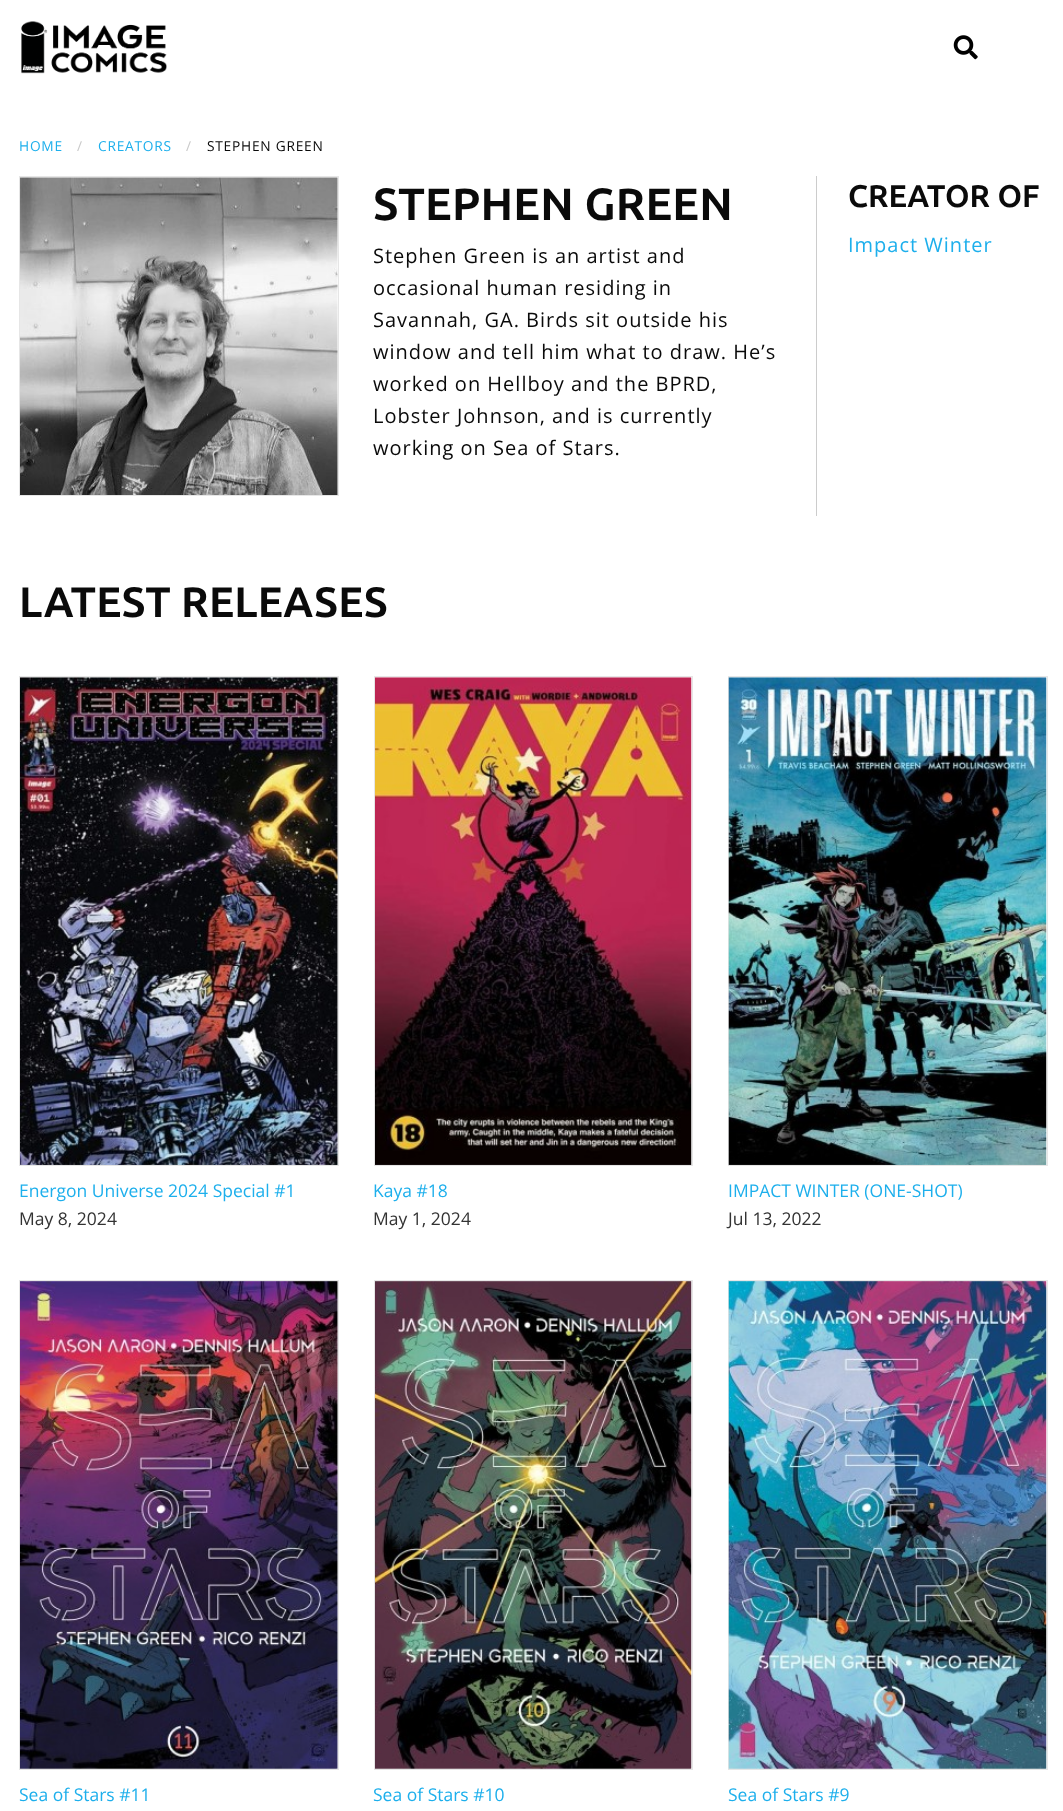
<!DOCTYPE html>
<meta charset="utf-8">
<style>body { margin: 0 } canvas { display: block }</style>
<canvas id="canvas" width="1063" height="1811"></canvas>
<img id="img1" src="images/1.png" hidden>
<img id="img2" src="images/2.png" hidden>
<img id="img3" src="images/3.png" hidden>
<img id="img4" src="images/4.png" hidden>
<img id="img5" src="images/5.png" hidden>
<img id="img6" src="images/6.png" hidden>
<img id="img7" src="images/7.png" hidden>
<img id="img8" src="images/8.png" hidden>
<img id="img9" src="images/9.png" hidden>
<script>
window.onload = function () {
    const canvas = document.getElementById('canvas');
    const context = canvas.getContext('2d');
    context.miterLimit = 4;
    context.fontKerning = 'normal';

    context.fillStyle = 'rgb(255, 255, 255)';
    context.fillRect(0, 0, 1063, 1811);
    context.drawImage(document.getElementById('img1'), 21, 21, 146, 53);
    context.drawImage(document.getElementById('img2'), 953, 35, 25, 25);
    context.strokeStyle = 'rgb(230, 230, 230)';
    context.strokeRect(19.5, 176.5, 319, 319);
    context.drawImage(document.getElementById('img3'), 20, 177, 318, 318);
    context.fillStyle = 'rgb(204, 204, 204)';
    context.fillRect(816, 176, 1, 340);
    context.strokeRect(19.5, 676.5, 319, 489);
    context.drawImage(document.getElementById('img4'), 20, 677, 318, 488);
    context.strokeRect(374.5, 676.5, 318, 489);
    context.drawImage(document.getElementById('img5'), 375, 677, 317, 488);
    context.strokeRect(728.5, 676.5, 319, 489);
    context.drawImage(document.getElementById('img6'), 728, 677, 319, 488);
    context.fillStyle = 'rgb(230, 230, 230)';
    context.fillRect(20, 1281, 316, 488);
    context.strokeRect(19.5, 1280.5, 319, 489);
    context.drawImage(document.getElementById('img7'), 20, 1281, 318, 488);
    context.fillRect(375, 1281, 315, 488);
    context.strokeRect(374.5, 1280.5, 318, 489);
    context.drawImage(document.getElementById('img8'), 375, 1281, 317, 488);
    context.fillRect(729, 1281, 316, 488);
    context.strokeRect(728.5, 1280.5, 319, 489);
    context.drawImage(document.getElementById('img9'), 728, 1281, 319, 488);
    context.letterSpacing = '0.75px';
    context.font = '13.75px Open Sans';
    context.fillStyle = 'rgb(29, 175, 236)';
    context.fillText('HOME', 19, 151);
    context.fillStyle = 'rgb(202, 202, 202)';
    context.fillText('/', 77, 151);
    context.fillStyle = 'rgb(29, 175, 236)';
    context.fillText('CREATORS', 98, 151);
    context.fillStyle = 'rgb(202, 202, 202)';
    context.fillText('/', 186, 151);
    context.fillStyle = 'rgb(10, 10, 10)';
    context.fillText('STEPHEN GREEN', 207, 151);
    context.letterSpacing = '0.1px';
    context.font = 'bold 45px Ubuntu';
    context.fillText('STEPHEN GREEN', 373, 220);
    context.letterSpacing = '1px';
    context.font = '20px Open Sans';
    context.fillText('Stephen Green is an artist and', 373, 263);
    context.fillText('occasional human residing in', 373, 295);
    context.fillText('Savannah, GA. Birds sit outside his', 373, 327);
    context.fillText('window and tell him what to draw. He’s', 373, 359);
    context.fillText('worked on Hellboy and the BPRD,', 373, 391);
    context.fillText('Lobster Johnson, and is currently', 373, 423);
    context.fillText('working on Sea of Stars.', 373, 455);
    context.letterSpacing = '0px';
    context.font = 'bold 31.25px Ubuntu';
    context.fillText('CREATOR OF', 848, 207);
    context.letterSpacing = '1px';
    context.font = '20px Open Sans';
    context.fillStyle = 'rgb(29, 175, 236)';
    context.fillText('Impact Winter', 848, 252);
    context.letterSpacing = '0.1px';
    context.font = 'bold 42.5px Ubuntu';
    context.fillStyle = 'rgb(10, 10, 10)';
    context.fillText('LATEST RELEASES', 19, 617);
    context.letterSpacing = '0px';
    context.font = '17.5px Open Sans';
    context.fillStyle = 'rgb(29, 175, 236)';
    context.fillText('Energon Universe 2024 Special #1', 19, 1197);
    context.fillStyle = 'rgb(51, 51, 51)';
    context.fillText('May 8, 2024', 19, 1225);
    context.fillStyle = 'rgb(29, 175, 236)';
    context.fillText('Kaya #18', 373, 1197);
    context.fillStyle = 'rgb(51, 51, 51)';
    context.fillText('May 1, 2024', 373, 1225);
    context.fillStyle = 'rgb(29, 175, 236)';
    context.fillText('IMPACT WINTER (ONE-SHOT)', 728, 1197);
    context.fillStyle = 'rgb(51, 51, 51)';
    context.fillText('Jul 13, 2022', 728, 1225);
    context.fillStyle = 'rgb(29, 175, 236)';
    context.fillText('Sea of Stars #11', 19, 1801);
    context.fillText('Sea of Stars #10', 373, 1801);
    context.fillText('Sea of Stars #9', 728, 1801);
};
</script>
